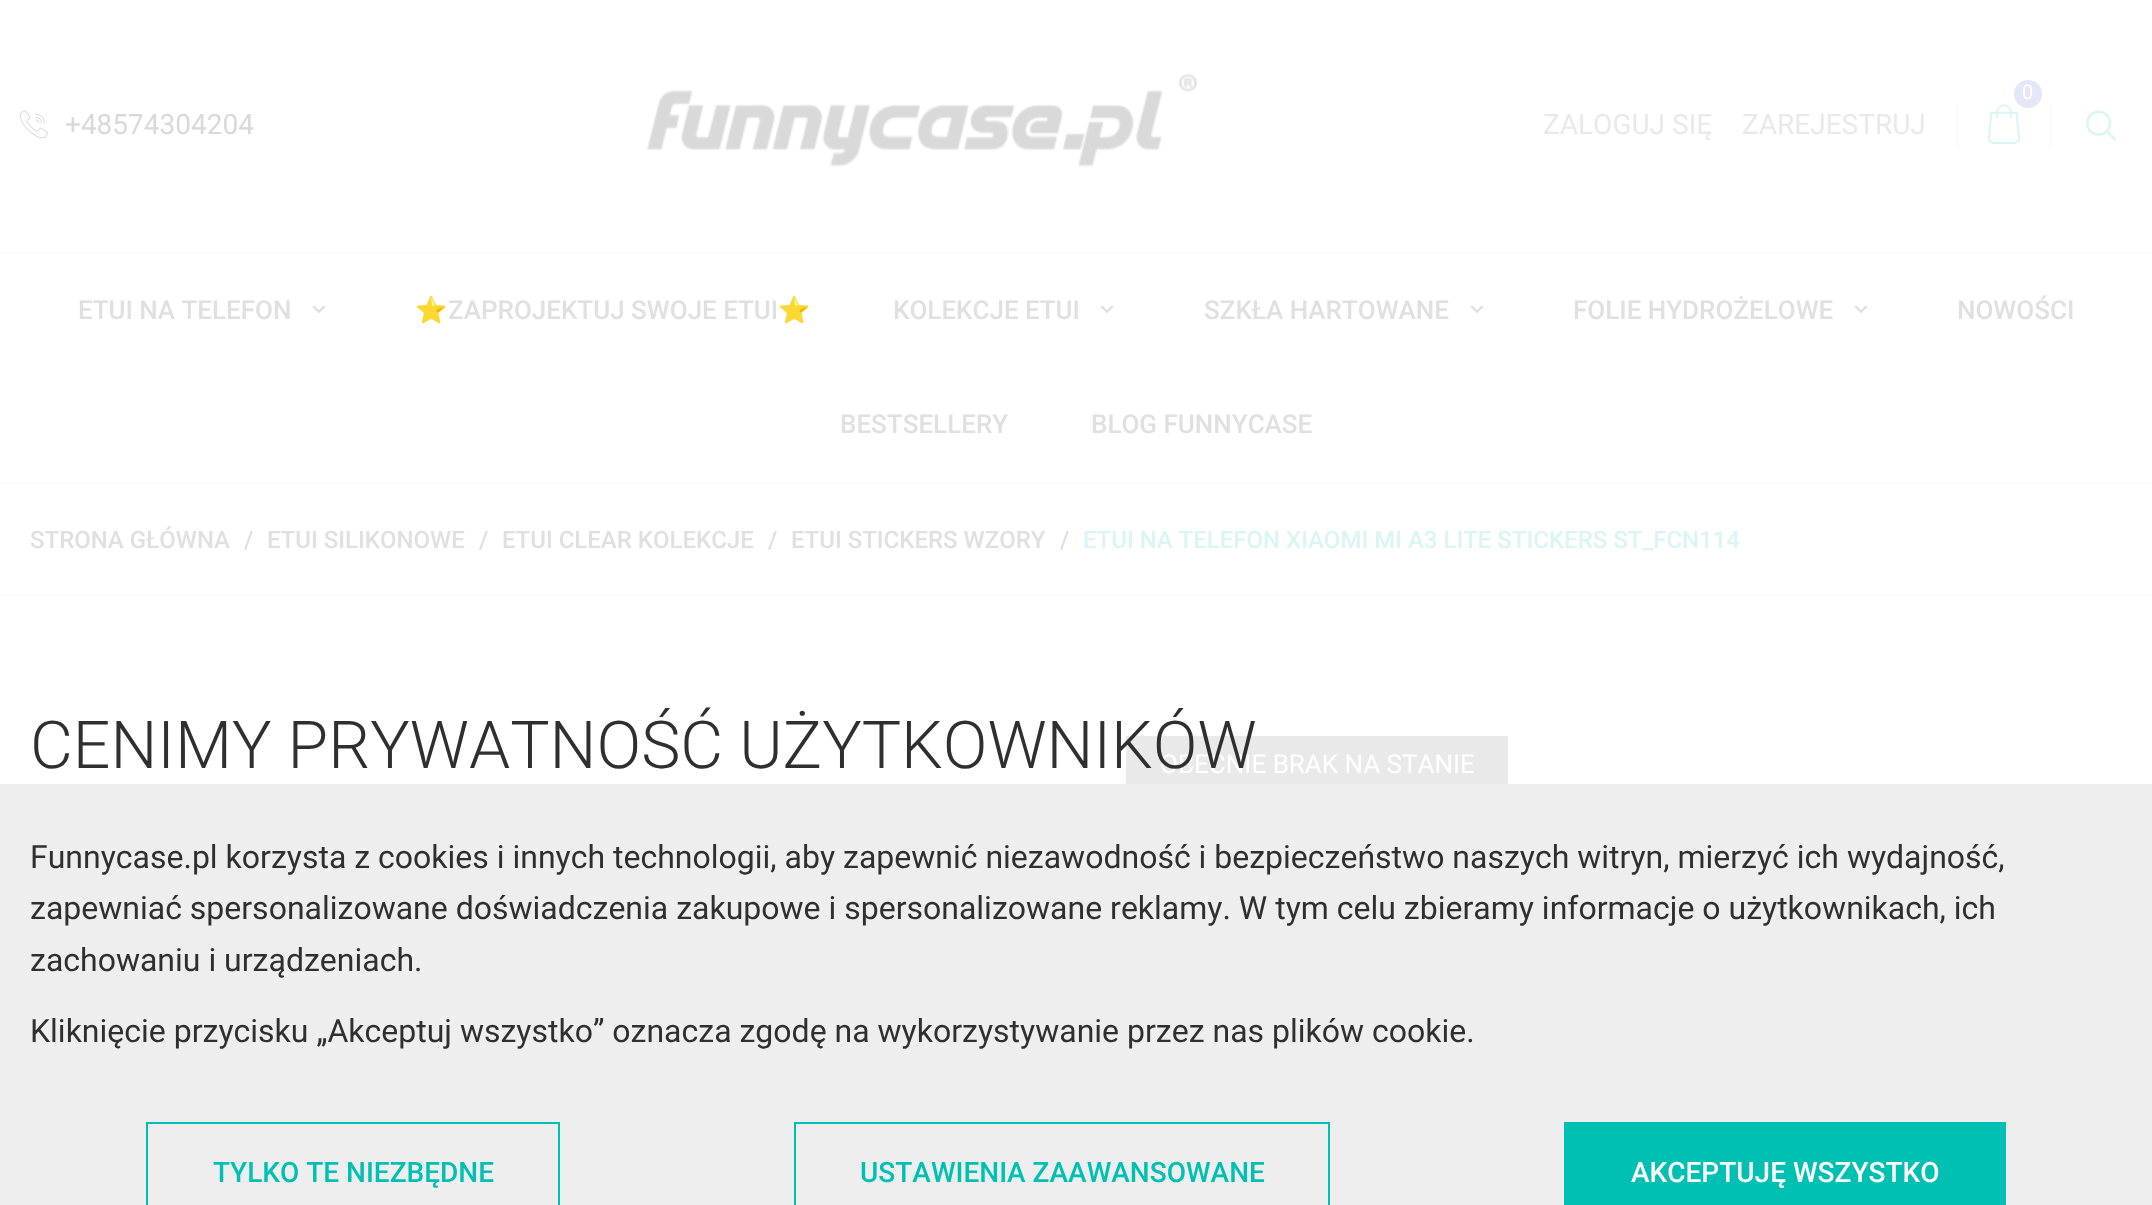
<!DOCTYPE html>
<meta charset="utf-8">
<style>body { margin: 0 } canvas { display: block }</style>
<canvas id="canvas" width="2152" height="1205"></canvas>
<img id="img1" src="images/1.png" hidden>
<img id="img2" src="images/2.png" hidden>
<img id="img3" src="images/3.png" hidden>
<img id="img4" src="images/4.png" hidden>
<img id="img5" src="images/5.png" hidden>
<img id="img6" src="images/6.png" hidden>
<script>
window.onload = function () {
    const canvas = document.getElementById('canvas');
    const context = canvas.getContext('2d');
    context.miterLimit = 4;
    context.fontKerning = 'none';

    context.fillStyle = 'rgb(255, 255, 255)';
    context.fillRect(0, 0, 2152, 1205);
    context.drawImage(document.getElementById('img1'), 20, 110, 28, 29);
    context.drawImage(document.getElementById('img2'), 646, 73, 552, 95);
    context.fillStyle = 'rgb(251, 251, 251)';
    context.fillRect(2050, 104, 2, 44);
    context.fillRect(1956, 104, 2, 44);
    context.drawImage(document.getElementById('img3'), 1988, 104, 32, 40);
    context.fillStyle = 'rgb(227, 231, 247)';
    context.beginPath();
    context.arc(2028, 94, 14, 0, 2 * Math.PI);
    context.fill();
    context.drawImage(document.getElementById('img4'), 2086, 110, 30, 31);
    context.fillStyle = 'rgb(251, 251, 251)';
    context.fillRect(0, 252, 2152, 2);
    context.fillRect(0, 482, 2152, 2);
    context.drawImage(document.getElementById('img5'), 312, 305, 14, 9);
    context.drawImage(document.getElementById('img5'), 1100, 305, 14, 9);
    context.drawImage(document.getElementById('img5'), 1470, 305, 14, 9);
    context.drawImage(document.getElementById('img5'), 1854, 305, 14, 9);
    context.fillStyle = 'rgb(252, 252, 252)';
    context.fillRect(0, 594, 2152, 2);
    context.drawImage(document.getElementById('img6'), 30, 687, 1016, 97);
    context.fillStyle = 'rgb(233, 233, 233)';
    context.fillRect(1126, 736, 382, 48);
    context.fillStyle = 'rgb(238, 238, 238)';
    context.fillRect(0, 784, 2152, 421);
    context.strokeStyle = 'rgb(0, 191, 179)';
    context.lineWidth = 2;
    context.strokeRect(147, 1123, 412, 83);
    context.strokeRect(795, 1123, 534, 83);
    context.fillStyle = 'rgb(0, 191, 179)';
    context.fillRect(1564, 1122, 442, 83);
    context.font = '28px Roboto';
    context.fillStyle = 'rgb(217, 217, 217)';
    context.fillText('+48574304204', 65, 134);
    context.font = '20px Roboto';
    context.fillStyle = 'rgb(255, 255, 255)';
    context.fillText('0', 2022, 99);
    context.font = '28px Roboto';
    context.fillStyle = 'rgb(233, 233, 233)';
    context.fillText('ZALOGUJ SIĘ', 1543, 134);
    context.fillText('ZAREJESTRUJ', 1742, 134);
    context.font = '500 26px Roboto';
    context.fillStyle = 'rgb(224, 224, 224)';
    context.fillText('ETUI NA TELEFON', 78, 319);
    context.font = '26px Noto Color Emoji';
    context.fillText('⭐', 415, 319);
    context.font = '500 26px Roboto';
    context.fillText('ZAPROJEKTUJ SWOJE ETUI', 448, 319);
    context.font = '26px Noto Color Emoji';
    context.fillText('⭐', 778, 319);
    context.font = '500 26px Roboto';
    context.fillText('KOLEKCJE ETUI', 893, 319);
    context.fillText('SZKŁA HARTOWANE', 1204, 319);
    context.fillText('FOLIE HYDROŻELOWE', 1573, 319);
    context.fillText('NOWOŚCI', 1957, 319);
    context.fillText('BESTSELLERY', 840, 433);
    context.fillText('BLOG FUNNYCASE', 1091, 433);
    context.font = '500 24px Roboto';
    context.fillText('STRONA GŁÓWNA', 30, 548);
    context.fillText('/', 244, 548);
    context.fillText('ETUI SILIKONOWE', 267, 548);
    context.fillText('/', 479, 548);
    context.fillText('ETUI CLEAR KOLEKCJE', 502, 548);
    context.fillText('/', 768, 548);
    context.fillText('ETUI STICKERS WZORY', 791, 548);
    context.fillText('/', 1060, 548);
    context.fillStyle = 'rgb(217, 245, 244)';
    context.fillText('ETUI NA TELEFON XIAOMI MI A3 LITE STICKERS ST_FCN114', 1083, 548);
    context.font = '26px Roboto';
    context.fillStyle = 'rgb(255, 255, 255)';
    context.fillText('OBECNIE BRAK NA STANIE', 1160, 773);
    context.font = '300 66px Roboto';
    context.fillStyle = 'rgb(47, 47, 47)';
    context.fillText('CENIMY PRYWATNOŚĆ UŻYTKOWNIKÓW', 30, 768);
    context.font = '32px Roboto';
    context.fillText('Funnycase.pl korzysta z cookies i innych technologii, aby zapewnić niezawodność i bezpieczeństwo naszych witryn, mierzyć ich wydajność,', 30, 868);
    context.fillText('zapewniać spersonalizowane doświadczenia zakupowe i spersonalizowane reklamy. W tym celu zbieramy informacje o użytkownikach, ich', 30, 919);
    context.fillText('zachowaniu i urządzeniach.', 30, 971);
    context.fillText('Kliknięcie przycisku „Akceptuj wszystko” oznacza zgodę na wykorzystywanie przez nas plików cookie.', 30, 1042);
    context.font = '500 28px Roboto';
    context.fillStyle = 'rgb(0, 191, 179)';
    context.fillText('TYLKO TE NIEZBĘDNE', 213, 1182);
    context.fillText('USTAWIENIA ZAAWANSOWANE', 860, 1182);
    context.fillStyle = 'rgb(255, 255, 255)';
    context.fillText('AKCEPTUJĘ WSZYSTKO', 1631, 1182);
};
</script>
